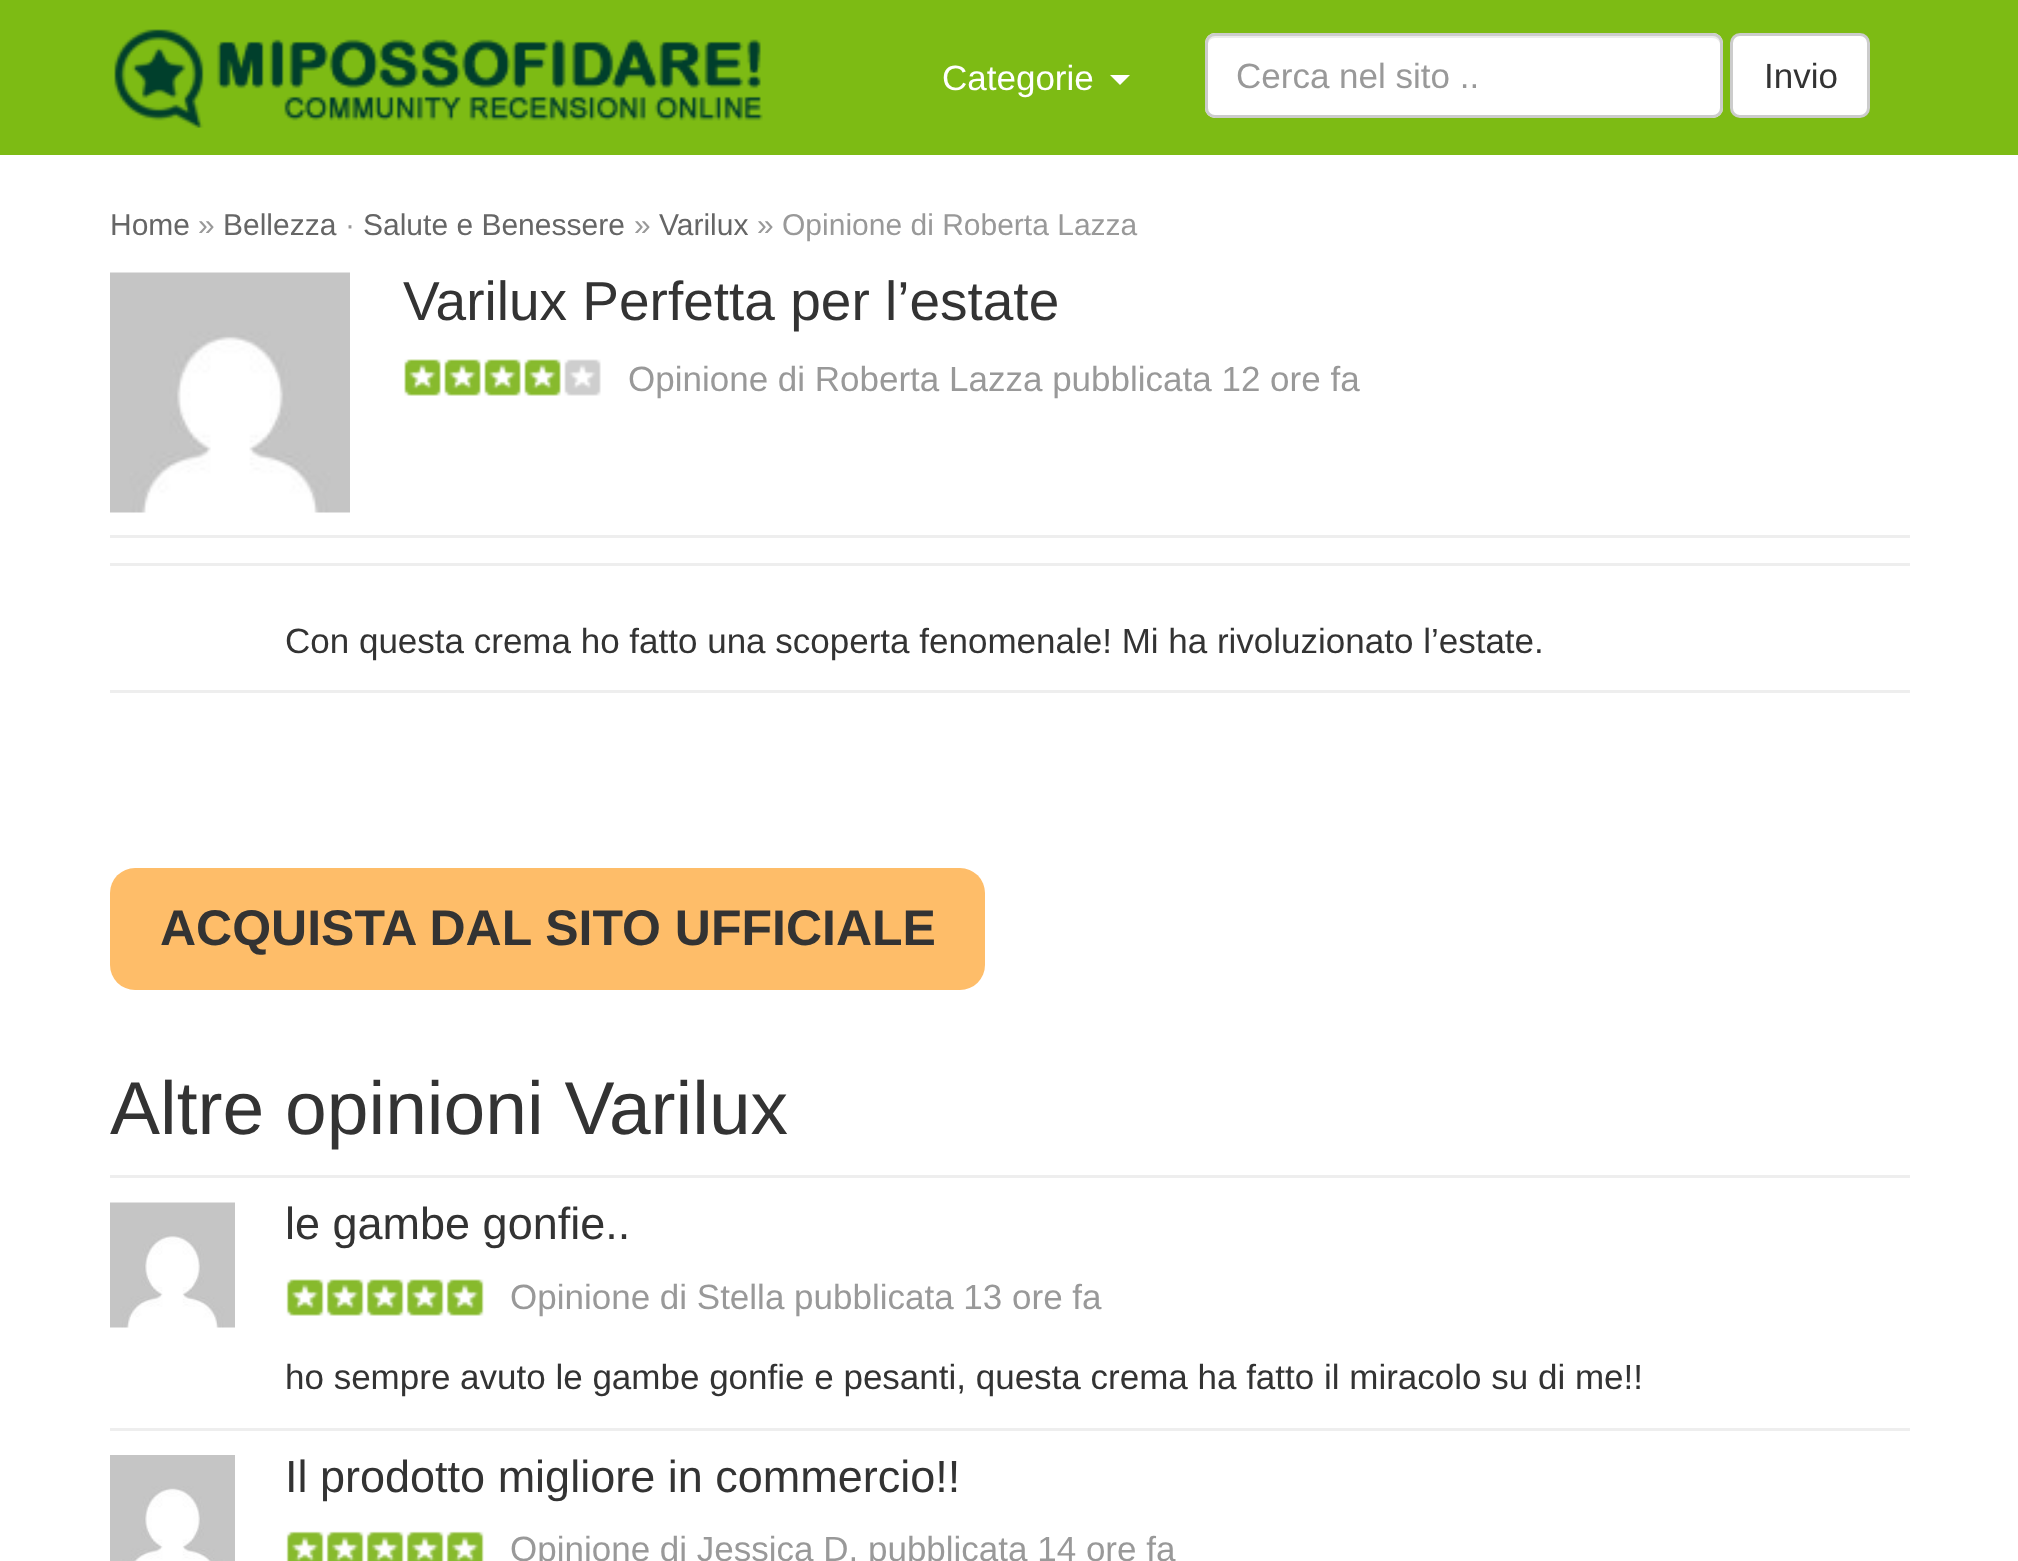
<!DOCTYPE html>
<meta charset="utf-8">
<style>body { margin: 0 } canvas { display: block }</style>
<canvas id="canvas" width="2018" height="1561"></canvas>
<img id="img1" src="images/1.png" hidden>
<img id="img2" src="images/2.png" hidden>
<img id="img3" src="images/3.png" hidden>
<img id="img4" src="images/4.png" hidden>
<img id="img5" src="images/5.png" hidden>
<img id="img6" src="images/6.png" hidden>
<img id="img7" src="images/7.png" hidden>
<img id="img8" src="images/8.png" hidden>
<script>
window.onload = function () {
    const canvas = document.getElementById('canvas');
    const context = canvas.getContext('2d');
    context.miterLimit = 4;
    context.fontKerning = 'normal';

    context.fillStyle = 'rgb(255, 255, 255)';
    context.fillRect(0, 0, 2018, 1561);
    context.fillStyle = 'rgb(125, 187, 20)';
    context.fillRect(0, 0, 2018, 155);
    context.drawImage(document.getElementById('img1'), 114, 29, 649, 99);
    context.fillStyle = 'rgb(255, 255, 255)';
    context.beginPath();
    context.moveTo(1110, 75);
    context.lineTo(1130, 75);
    context.lineTo(1120, 85);
    context.closePath();
    context.fill();
    context.beginPath();
    context.roundRect(1205, 33, 518, 85, 10);
    context.fill();
    context.fillStyle = 'rgb(236, 236, 236)';
    context.beginPath();
    context.moveTo(1215, 38);
    context.lineTo(1712, 38);
    context.bezierCurveTo(1717, 38, 1720, 41, 1720, 45);
    context.lineTo(1720, 43);
    context.bezierCurveTo(1720, 39, 1716, 35, 1712, 35);
    context.lineTo(1216, 35);
    context.bezierCurveTo(1212, 35, 1208, 39, 1208, 43);
    context.lineTo(1208, 45);
    context.bezierCurveTo(1208, 41, 1211, 38, 1215, 38);
    context.closePath();
    context.fill();
    context.beginPath();
    context.roundRect(1206.5, 34.5, 515, 82, 8.5);
    context.strokeStyle = 'rgb(204, 204, 204)';
    context.lineWidth = 3;
    context.stroke();
    context.fillStyle = 'rgb(255, 255, 255)';
    context.beginPath();
    context.roundRect(1731.5, 34.5, 137, 82, 8.5);
    context.fill();
    context.stroke();
    context.fillStyle = 'rgb(238, 238, 238)';
    context.fillRect(110, 535, 1800, 3);
    context.drawImage(document.getElementById('img2'), 110, 272, 240, 241);
    context.drawImage(document.getElementById('img3'), 561, 359, 40, 37);
    context.drawImage(document.getElementById('img4'), 404, 359, 157, 37);
    context.fillRect(110, 563, 1800, 3);
    context.fillRect(110, 690, 1800, 3);
    context.fillStyle = 'rgb(254, 189, 105)';
    context.beginPath();
    context.roundRect(110, 868, 875, 122, 25);
    context.fill();
    context.fillStyle = 'rgb(238, 238, 238)';
    context.fillRect(110, 1175, 1800, 3);
    context.drawImage(document.getElementById('img5'), 110, 1202, 125, 126);
    context.drawImage(document.getElementById('img6'), 286, 1279, 198, 37);
    context.fillRect(110, 1428, 1800, 3);
    context.drawImage(document.getElementById('img7'), 110, 1455, 125, 106);
    context.drawImage(document.getElementById('img8'), 286, 1531, 198, 30);
    context.font = '35px Liberation Sans';
    context.fillStyle = 'rgb(255, 255, 255)';
    context.fillText('Categorie', 942, 90);
    context.fillStyle = 'rgb(153, 153, 153)';
    context.fillText('Cerca nel sito ..', 1236, 88);
    context.fillStyle = 'rgb(51, 51, 51)';
    context.fillText('Invio', 1764, 88);
    context.font = '30px Liberation Sans';
    context.fillStyle = 'rgb(102, 102, 102)';
    context.fillText('Home', 110, 235);
    context.fillStyle = 'rgb(153, 153, 153)';
    context.fillText('»', 198, 235);
    context.fillStyle = 'rgb(102, 102, 102)';
    context.fillText('Bellezza', 223, 235);
    context.fillStyle = 'rgb(153, 153, 153)';
    context.fillText('·', 345, 235);
    context.fillStyle = 'rgb(102, 102, 102)';
    context.fillText('Salute e Benessere', 363, 235);
    context.fillStyle = 'rgb(153, 153, 153)';
    context.fillText('»', 634, 235);
    context.fillStyle = 'rgb(102, 102, 102)';
    context.fillText('Varilux', 659, 235);
    context.fillStyle = 'rgb(153, 153, 153)';
    context.fillText('» Opinione di Roberta Lazza', 757, 235);
    context.font = '55px Liberation Sans';
    context.fillStyle = 'rgb(51, 51, 51)';
    context.fillText('Varilux Perfetta per l’estate', 403, 320);
    context.font = '35px Liberation Sans';
    context.fillStyle = 'rgb(153, 153, 153)';
    context.fillText('Opinione di Roberta Lazza pubblicata 12 ore fa', 628, 391);
    context.fillStyle = 'rgb(51, 51, 51)';
    context.fillText('Con questa crema ho fatto una scoperta fenomenale! Mi ha rivoluzionato l’estate.', 285, 653);
    context.font = 'bold 50px Liberation Sans';
    context.fillText('ACQUISTA DAL SITO UFFICIALE', 160, 945);
    context.font = '75px Liberation Sans';
    context.fillText('Altre opinioni Varilux', 110, 1134);
    context.font = '45px Liberation Sans';
    context.fillText('le gambe gonfie..', 285, 1239);
    context.font = '35px Liberation Sans';
    context.fillStyle = 'rgb(153, 153, 153)';
    context.fillText('Opinione di Stella pubblicata 13 ore fa', 510, 1309);
    context.fillStyle = 'rgb(51, 51, 51)';
    context.fillText('ho sempre avuto le gambe gonfie e pesanti, questa crema ha fatto il miracolo su di me!!', 285, 1389);
    context.font = '45px Liberation Sans';
    context.fillText('Il prodotto migliore in commercio!!', 285, 1492);
    context.font = '35px Liberation Sans';
    context.fillStyle = 'rgb(153, 153, 153)';
    context.fillText('Opinione di Jessica D. pubblicata 14 ore fa', 510, 1561);
};
</script>
